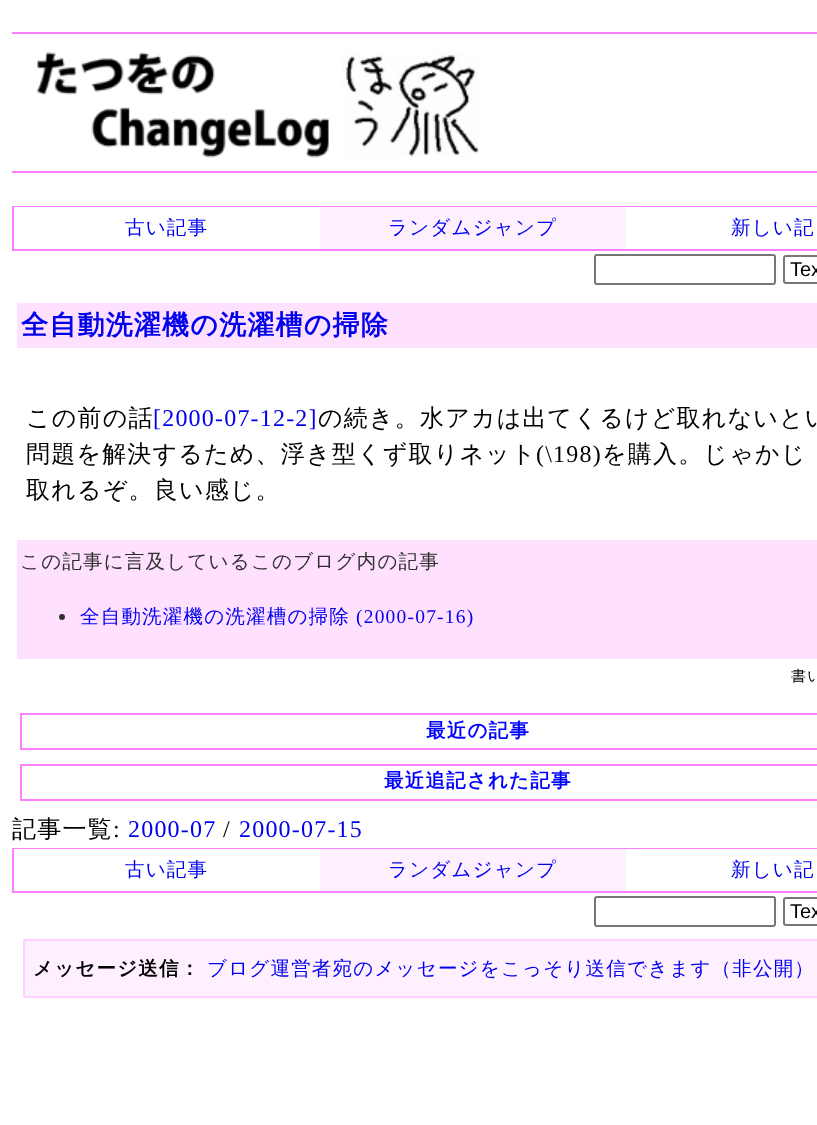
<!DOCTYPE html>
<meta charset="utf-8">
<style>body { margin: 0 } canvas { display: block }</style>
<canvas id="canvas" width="817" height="1125"></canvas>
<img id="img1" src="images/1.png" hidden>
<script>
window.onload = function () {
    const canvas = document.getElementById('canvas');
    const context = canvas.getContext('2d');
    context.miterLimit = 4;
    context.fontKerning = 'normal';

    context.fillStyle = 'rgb(255, 255, 255)';
    context.fillRect(0, 0, 817, 1125);
    context.fillStyle = 'rgb(255, 128, 255)';
    context.fillRect(12, 32, 805, 2);
    context.fillRect(12, 171, 805, 2);
    context.drawImage(document.getElementById('img1'), 37, 52, 442, 106);
    context.strokeStyle = 'rgb(255, 128, 255)';
    context.lineWidth = 2;
    context.strokeRect(13, 207, 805, 43);
    context.fillStyle = 'rgb(255, 255, 255)';
    context.fillRect(14, 207, 306, 1);
    context.fillStyle = 'rgb(255, 240, 255)';
    context.fillRect(320, 207, 306, 42);
    context.fillStyle = 'rgb(255, 255, 255)';
    context.fillRect(626, 207, 191, 1);
    context.beginPath();
    context.roundRect(595, 255, 180, 29, 2);
    context.strokeStyle = 'rgb(118, 118, 118)';
    context.stroke();
    context.beginPath();
    context.roundRect(784, 256, 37, 27, 2);
    context.stroke();
    context.fillStyle = 'rgb(255, 224, 255)';
    context.fillRect(17, 303, 800, 45);
    context.fillRect(17, 540, 800, 119);
    context.fillStyle = 'rgb(48, 48, 48)';
    context.beginPath();
    context.arc(62, 617, 3, 0, 2 * Math.PI);
    context.fill();
    context.strokeStyle = 'rgb(255, 128, 255)';
    context.strokeRect(21, 714, 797, 35);
    context.strokeRect(21, 765, 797, 35);
    context.strokeRect(13, 849, 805, 43);
    context.fillStyle = 'rgb(255, 255, 255)';
    context.fillRect(14, 849, 306, 1);
    context.fillStyle = 'rgb(255, 240, 255)';
    context.fillRect(320, 849, 306, 42);
    context.fillStyle = 'rgb(255, 255, 255)';
    context.fillRect(626, 849, 191, 1);
    context.beginPath();
    context.roundRect(595, 897, 180, 29, 2);
    context.strokeStyle = 'rgb(118, 118, 118)';
    context.stroke();
    context.beginPath();
    context.roundRect(784, 898, 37, 27, 2);
    context.stroke();
    context.fillStyle = 'rgb(255, 240, 255)';
    context.beginPath();
    context.rect(24, 940, 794, 57);
    context.fill();
    context.strokeStyle = 'rgb(255, 208, 255)';
    context.stroke();
    context.letterSpacing = '1.2px';
    context.font = '500 19.5px WenQuanYi Zen Hei';
    context.fillStyle = 'rgb(0, 0, 238)';
    context.fillText('古い記事', 125, 234);
    context.fillText('ランダムジャンプ', 388, 234);
    context.fillText('新しい記', 731, 234);
    context.letterSpacing = '0px';
    context.font = '20px Liberation Sans';
    context.fillStyle = 'rgb(0, 0, 0)';
    context.fillText('Tex', 790, 276);
    context.letterSpacing = '1.2px';
    context.font = 'bold 27px WenQuanYi Zen Hei';
    context.fillStyle = 'rgb(0, 0, 238)';
    context.fillText('全自動洗濯機の洗濯槽の掃除', 21, 334);
    context.font = '500 24px WenQuanYi Zen Hei';
    context.fillStyle = 'rgb(0, 0, 0)';
    context.fillText('この前の話', 26, 426);
    context.font = '24px Liberation Serif';
    context.fillStyle = 'rgb(0, 0, 238)';
    context.fillText('[2000-07-12-2]', 153, 426);
    context.font = '500 24px WenQuanYi Zen Hei';
    context.fillStyle = 'rgb(0, 0, 0)';
    context.fillText('の続き。水アカは出てくるけど取れないとい', 318, 426);
    context.fillText('問題を解決するため、浮き型くず取りネット', 26, 462);
    context.font = '24px Liberation Serif';
    context.fillText('(\\198)', 536, 462);
    context.font = '500 24px WenQuanYi Zen Hei';
    context.fillText('を購入。じゃかじ', 602, 462);
    context.fillText('取れるぞ。良い感じ。', 26, 498);
    context.font = '500 19.5px WenQuanYi Zen Hei';
    context.fillStyle = 'rgb(48, 48, 48)';
    context.fillText('この記事に言及しているこのブログ内の記事', 20, 568);
    context.fillStyle = 'rgb(0, 0, 238)';
    context.fillText('全自動洗濯機の洗濯槽の掃除', 80, 623);
    context.font = '19.5px Liberation Serif';
    context.fillText('(2000-07-16)', 356, 623);
    context.font = '500 15px WenQuanYi Zen Hei';
    context.fillStyle = 'rgb(0, 0, 0)';
    context.fillText('書い', 791, 681);
    context.font = 'bold 19.5px WenQuanYi Zen Hei';
    context.fillStyle = 'rgb(0, 0, 255)';
    context.fillText('最近の記事', 426, 737);
    context.fillText('最近追記された記事', 384, 787);
    context.font = '500 24px WenQuanYi Zen Hei';
    context.fillStyle = 'rgb(0, 0, 0)';
    context.fillText('記事一覧', 12, 837);
    context.font = '24px Liberation Serif';
    context.fillText(':', 113, 837);
    context.fillStyle = 'rgb(0, 0, 238)';
    context.fillText('2000-07', 128, 837);
    context.fillStyle = 'rgb(0, 0, 0)';
    context.fillText('/', 223, 837);
    context.fillStyle = 'rgb(0, 0, 238)';
    context.fillText('2000-07-15', 239, 837);
    context.font = '500 19.5px WenQuanYi Zen Hei';
    context.fillText('古い記事', 125, 876);
    context.fillText('ランダムジャンプ', 388, 876);
    context.fillText('新しい記', 731, 876);
    context.letterSpacing = '0px';
    context.font = '20px Liberation Sans';
    context.fillStyle = 'rgb(0, 0, 0)';
    context.fillText('Tex', 790, 918);
    context.letterSpacing = '1.2px';
    context.font = 'bold 19.5px WenQuanYi Zen Hei';
    context.fillText('メッセージ送信：', 33, 975);
    context.font = '500 19.5px WenQuanYi Zen Hei';
    context.fillStyle = 'rgb(0, 0, 238)';
    context.fillText('ブログ運営者宛のメッセージをこっそり送信できます（非公開）', 207, 975);
};
</script>
